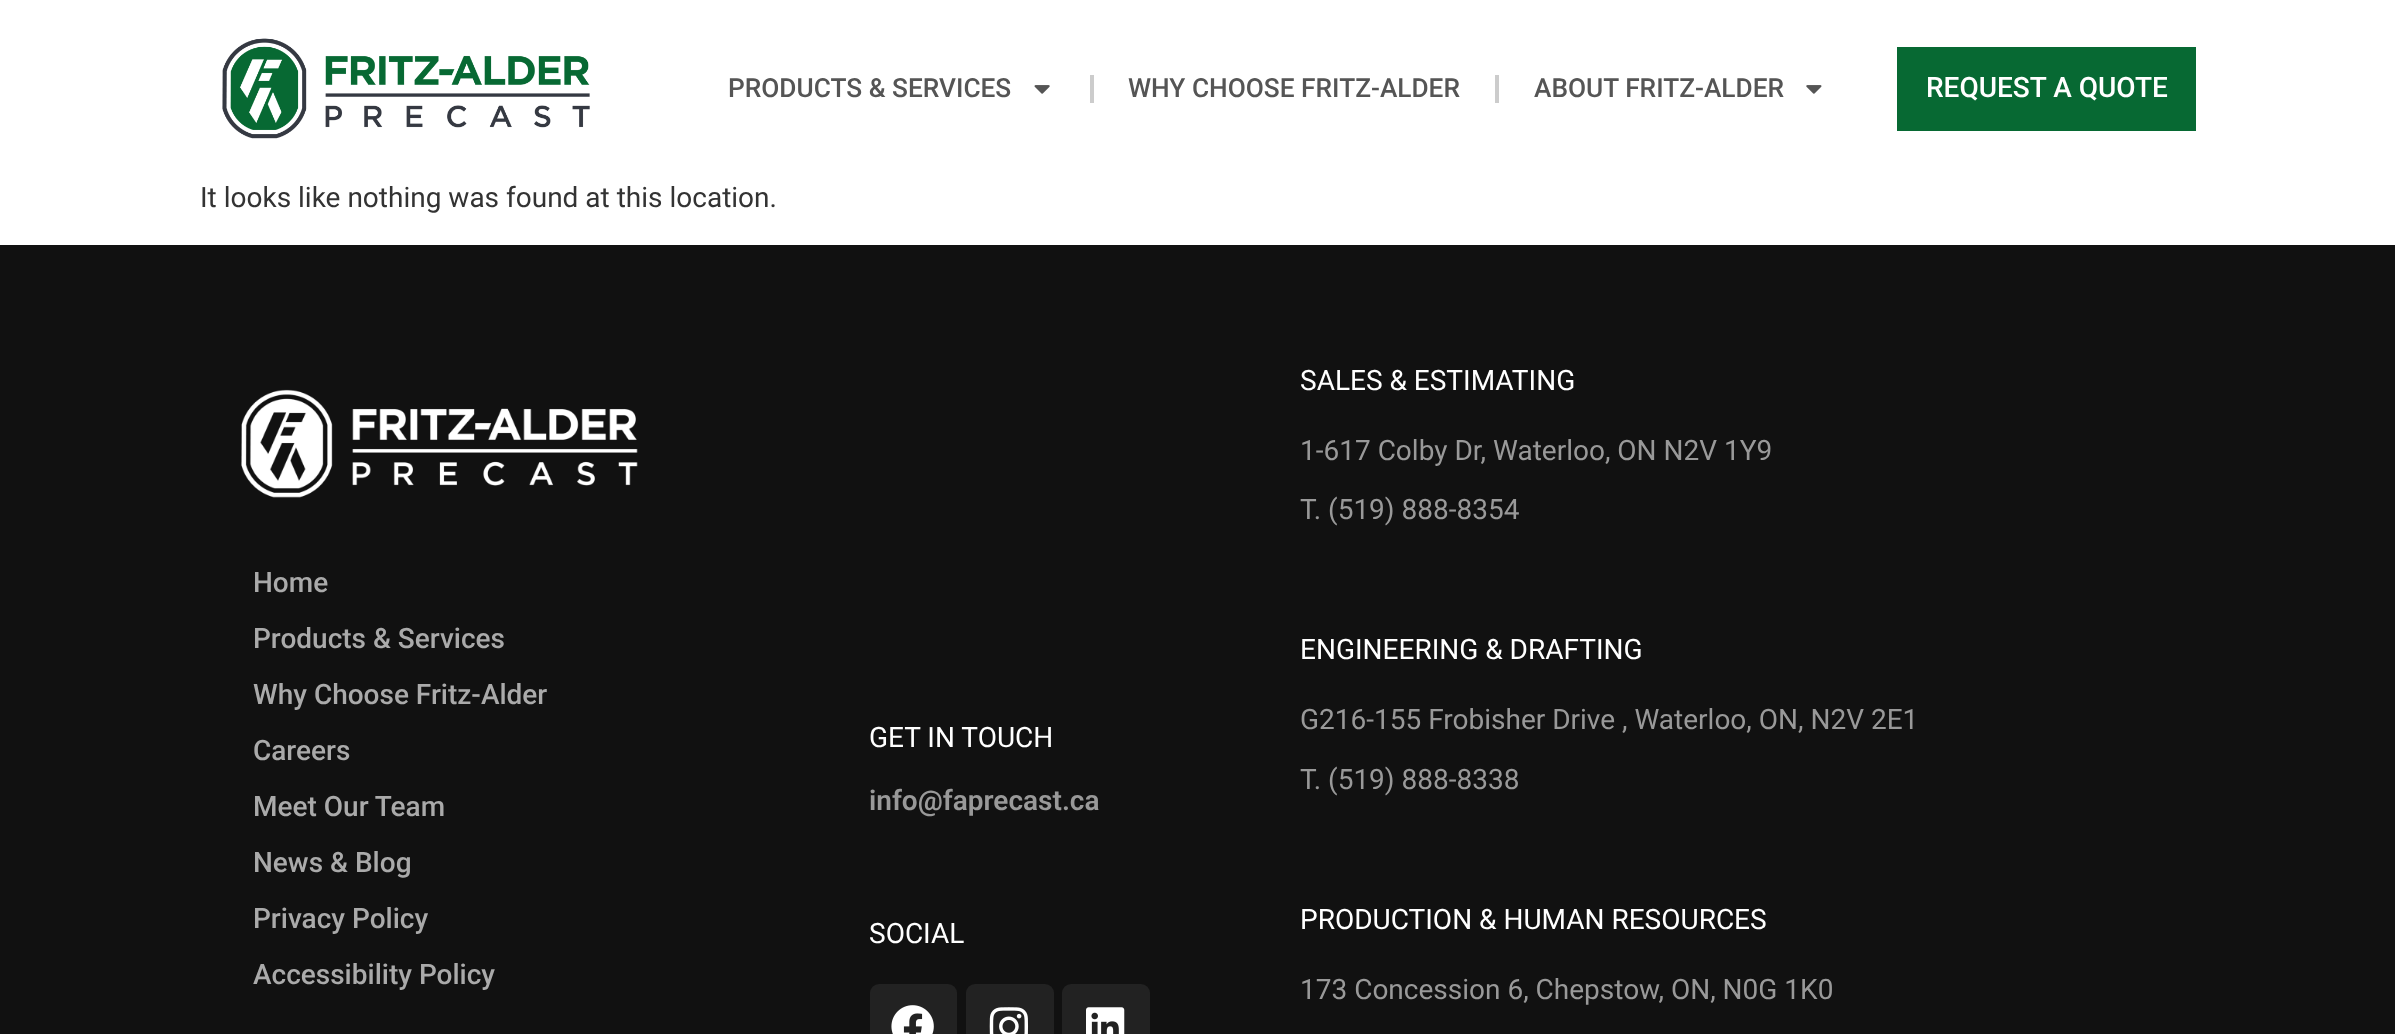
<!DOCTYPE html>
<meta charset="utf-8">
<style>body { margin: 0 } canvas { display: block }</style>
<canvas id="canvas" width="2395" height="1034"></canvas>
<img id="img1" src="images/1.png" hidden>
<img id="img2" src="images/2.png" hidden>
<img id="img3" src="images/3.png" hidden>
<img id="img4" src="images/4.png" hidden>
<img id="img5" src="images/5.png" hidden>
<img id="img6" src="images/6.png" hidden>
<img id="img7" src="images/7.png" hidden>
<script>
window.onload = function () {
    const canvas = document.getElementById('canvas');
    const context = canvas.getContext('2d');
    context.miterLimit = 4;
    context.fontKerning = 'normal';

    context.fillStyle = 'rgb(255, 255, 255)';
    context.fillRect(0, 0, 2395, 1034);
    context.drawImage(document.getElementById('img1'), 222, 38, 368, 101);
    context.drawImage(document.getElementById('img2'), 1034, 85, 16, 9);
    context.fillStyle = 'rgb(204, 204, 204)';
    context.fillRect(1090, 75, 4, 28);
    context.fillRect(1495, 75, 4, 28);
    context.drawImage(document.getElementById('img3'), 1806, 85, 16, 9);
    context.fillStyle = 'rgb(7, 105, 51)';
    context.fillRect(1897, 47, 299, 84);
    context.fillStyle = 'rgb(17, 17, 17)';
    context.fillRect(0, 245, 2395, 789);
    context.drawImage(document.getElementById('img4'), 241, 389, 397, 109);
    context.fillStyle = 'rgb(34, 34, 34)';
    context.beginPath();
    context.roundRect(870, 984, 87, 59, 9);
    context.fill();
    context.drawImage(document.getElementById('img5'), 891, 1005, 43, 29);
    context.beginPath();
    context.roundRect(966, 984, 88, 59, 9);
    context.fill();
    context.drawImage(document.getElementById('img6'), 989, 1007, 40, 27);
    context.beginPath();
    context.roundRect(1062, 984, 88, 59, 9);
    context.fill();
    context.drawImage(document.getElementById('img7'), 1086, 1007, 39, 27);
    context.font = '500 26.25px Roboto';
    context.fillStyle = 'rgb(85, 85, 85)';
    context.fillText('PRODUCTS & SERVICES', 728, 97);
    context.fillText('WHY CHOOSE FRITZ-ALDER', 1128, 97);
    context.fillText('ABOUT FRITZ-ALDER', 1534, 97);
    context.font = '500 28px Roboto';
    context.fillStyle = 'rgb(255, 255, 255)';
    context.fillText('REQUEST A QUOTE', 1926, 97);
    context.font = '28px Roboto';
    context.fillStyle = 'rgb(51, 51, 51)';
    context.fillText('It looks like nothing was found at this location.', 200, 207);
    context.font = '500 28px Roboto';
    context.fillStyle = 'rgb(170, 170, 170)';
    context.fillText('Home', 253, 592);
    context.fillText('Products & Services', 253, 648);
    context.fillText('Why Choose Fritz-Alder', 253, 704);
    context.fillText('Careers', 253, 760);
    context.fillText('Meet Our Team', 253, 816);
    context.fillText('News & Blog', 253, 872);
    context.fillText('Privacy Policy', 253, 928);
    context.fillText('Accessibility Policy', 253, 984);
    context.font = '28px Roboto';
    context.fillStyle = 'rgb(255, 255, 255)';
    context.fillText('GET IN TOUCH', 869, 747);
    context.font = '600 28px Roboto';
    context.fillStyle = 'rgb(153, 153, 153)';
    context.fillText('info@faprecast.ca', 869, 810);
    context.font = '28px Roboto';
    context.fillStyle = 'rgb(255, 255, 255)';
    context.fillText('SOCIAL', 869, 943);
    context.fillText('SALES & ESTIMATING', 1300, 390);
    context.fillStyle = 'rgb(153, 153, 153)';
    context.fillText('1-617 Colby Dr, Waterloo, ON N2V 1Y9', 1300, 460);
    context.fillText('T. (519) 888-8354', 1300, 519);
    context.fillStyle = 'rgb(255, 255, 255)';
    context.fillText('ENGINEERING & DRAFTING', 1300, 659);
    context.fillStyle = 'rgb(153, 153, 153)';
    context.fillText('G216-155 Frobisher Drive , Waterloo, ON, N2V 2E1', 1300, 729);
    context.fillText('T. (519) 888-8338', 1300, 789);
    context.fillStyle = 'rgb(255, 255, 255)';
    context.fillText('PRODUCTION & HUMAN RESOURCES', 1300, 929);
    context.fillStyle = 'rgb(153, 153, 153)';
    context.fillText('173 Concession 6, Chepstow, ON, N0G 1K0', 1300, 999);
};
</script>
